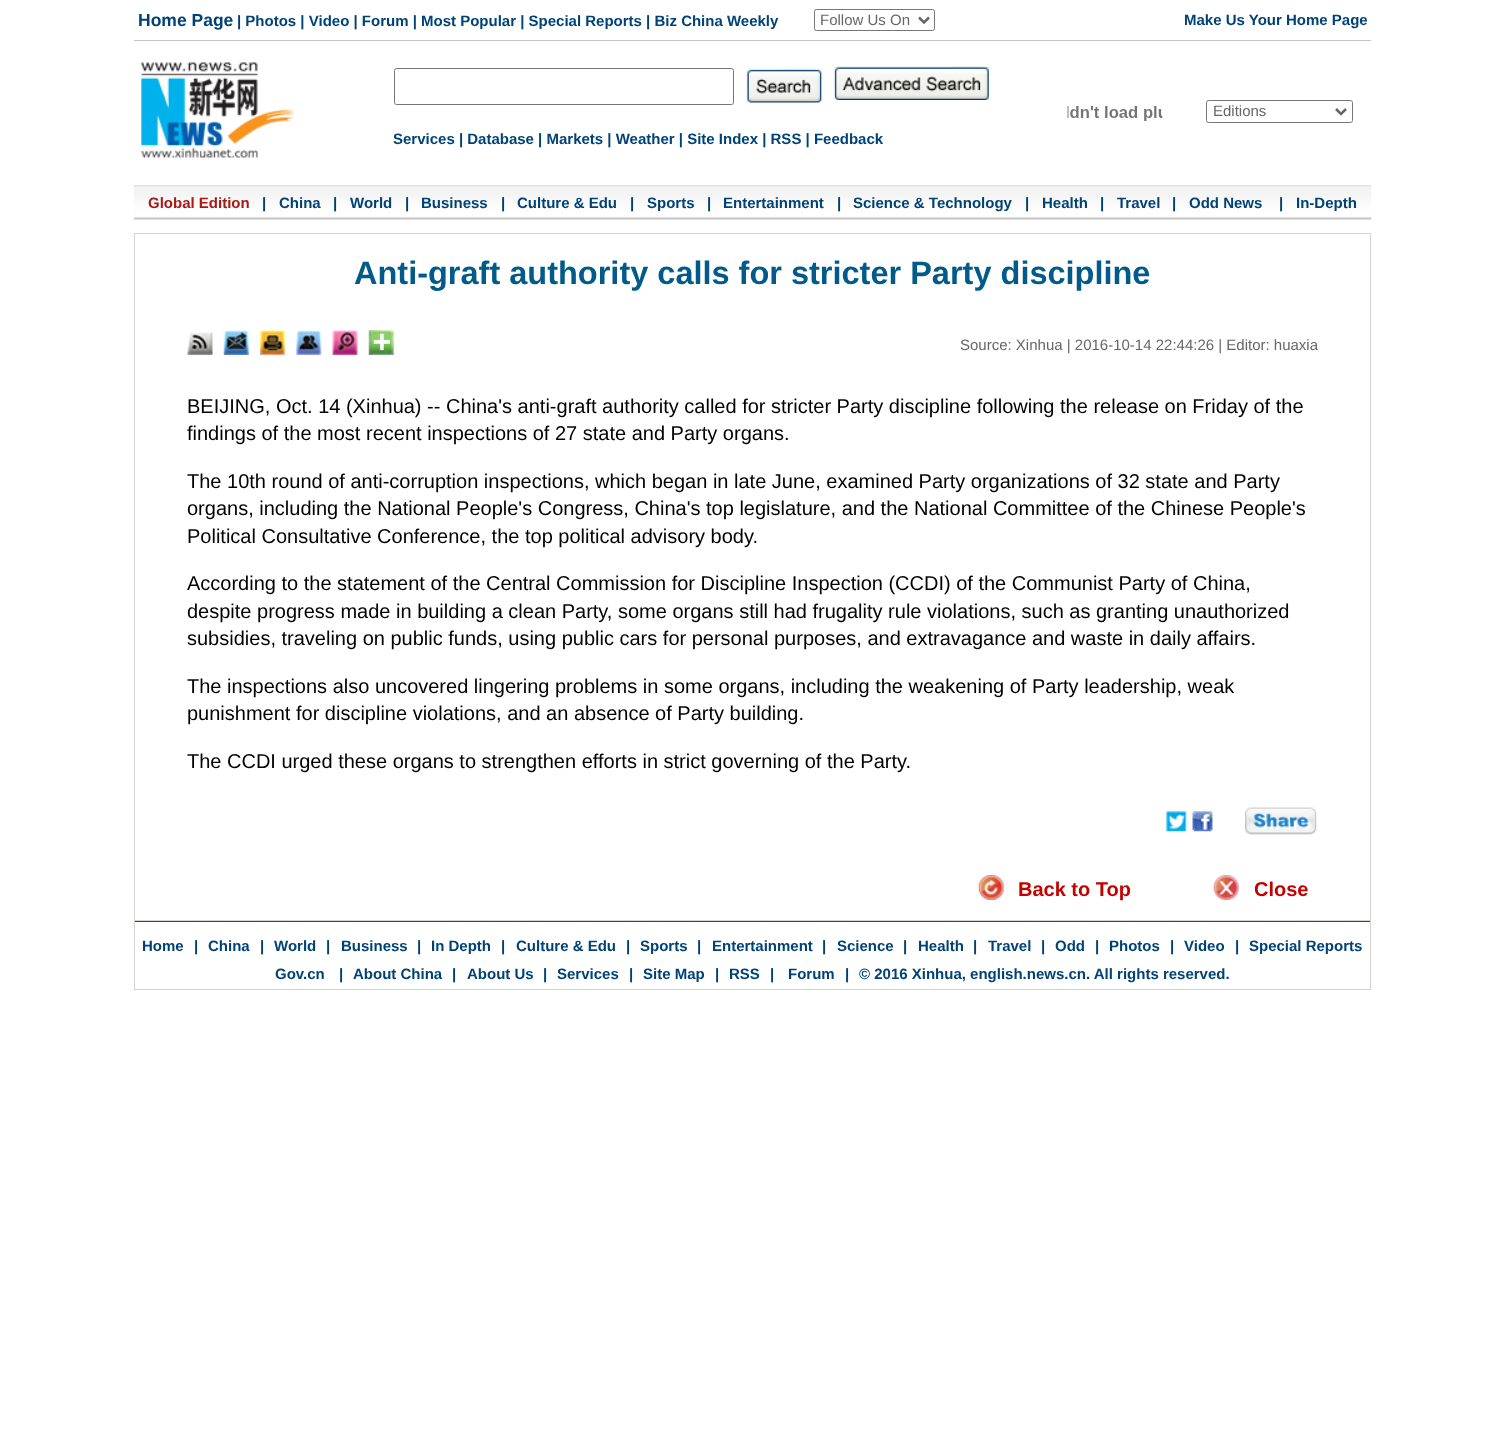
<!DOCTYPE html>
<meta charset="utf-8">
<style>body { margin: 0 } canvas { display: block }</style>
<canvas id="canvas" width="1505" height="1434"></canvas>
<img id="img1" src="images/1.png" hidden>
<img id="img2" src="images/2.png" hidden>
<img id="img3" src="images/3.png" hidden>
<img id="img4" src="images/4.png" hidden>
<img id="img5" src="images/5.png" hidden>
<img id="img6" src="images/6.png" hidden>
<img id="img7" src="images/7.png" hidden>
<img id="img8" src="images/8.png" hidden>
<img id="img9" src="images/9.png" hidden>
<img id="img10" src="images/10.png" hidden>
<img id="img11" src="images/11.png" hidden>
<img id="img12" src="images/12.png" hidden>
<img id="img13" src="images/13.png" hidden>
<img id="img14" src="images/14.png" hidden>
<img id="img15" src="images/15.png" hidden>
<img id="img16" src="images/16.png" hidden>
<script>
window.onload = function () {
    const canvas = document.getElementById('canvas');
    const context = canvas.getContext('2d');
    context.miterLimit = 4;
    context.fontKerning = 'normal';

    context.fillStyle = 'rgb(255, 255, 255)';
    context.fillRect(0, 0, 1505, 1434);
    context.fillStyle = 'rgb(199, 199, 199)';
    context.fillRect(134, 40, 1237, 1);
    context.beginPath();
    context.roundRect(814.5, 9.5, 120, 21, 2);
    context.strokeStyle = 'rgb(118, 118, 118)';
    context.stroke();
    context.beginPath();
    context.moveTo(919, 17.5);
    context.lineTo(924, 22.5);
    context.lineTo(929, 17.5);
    context.strokeStyle = 'rgb(102, 102, 102)';
    context.lineWidth = 2.5;
    context.stroke();
    context.drawImage(document.getElementById('img1'), 141, 62, 154, 96);
    context.drawImage(document.getElementById('img2'), 1067, 106, 96, 15);
    context.beginPath();
    context.roundRect(1206.5, 100.5, 146, 22, 2);
    context.strokeStyle = 'rgb(118, 118, 118)';
    context.lineWidth = 1;
    context.stroke();
    context.beginPath();
    context.moveTo(1336, 109);
    context.lineTo(1341, 114);
    context.lineTo(1346, 109);
    context.strokeStyle = 'rgb(102, 102, 102)';
    context.lineWidth = 2.5;
    context.stroke();
    context.beginPath();
    context.roundRect(394.5, 68.5, 339, 36, 2);
    context.strokeStyle = 'rgb(118, 118, 118)';
    context.lineWidth = 1;
    context.stroke();
    context.drawImage(document.getElementById('img3'), 746, 68, 77, 35);
    context.drawImage(document.getElementById('img4'), 833, 66, 157, 34);
    context.drawImage(document.getElementById('img5'), 133, 185, 1239, 35);
    context.strokeStyle = 'rgb(211, 212, 207)';
    context.strokeRect(134.5, 233.5, 1236, 687);
    context.drawImage(document.getElementById('img6'), 187, 332, 26, 23);
    context.drawImage(document.getElementById('img7'), 223, 330, 26, 25);
    context.drawImage(document.getElementById('img8'), 260, 330, 25, 25);
    context.drawImage(document.getElementById('img9'), 296, 330, 26, 25);
    context.drawImage(document.getElementById('img10'), 332, 330, 26, 25);
    context.drawImage(document.getElementById('img11'), 368, 330, 26, 25);
    context.drawImage(document.getElementById('img12'), 1166, 811, 21, 21);
    context.drawImage(document.getElementById('img13'), 1192, 811, 21, 21);
    context.drawImage(document.getElementById('img14'), 1245, 807, 72, 28);
    context.drawImage(document.getElementById('img15'), 978, 875, 26, 25);
    context.drawImage(document.getElementById('img16'), 1213, 875, 26, 25);
    context.fillStyle = 'rgb(11, 87, 123)';
    context.fillRect(134, 921, 1237, 1);
    context.fillStyle = 'rgb(211, 212, 207)';
    context.fillRect(1370, 921, 1, 69);
    context.fillRect(134, 989, 1237, 1);
    context.fillRect(134, 921, 1, 69);
    context.font = 'bold 17.5px Liberation Sans';
    context.fillStyle = 'rgb(0, 66, 118)';
    context.fillText('Home Page', 138, 26);
    context.font = 'bold 15px Liberation Sans';
    context.fillText('| Photos | Video | Forum | Most Popular | Special Reports | Biz China Weekly', 237, 26);
    context.font = '15px Liberation Sans';
    context.fillStyle = 'rgb(102, 102, 102)';
    context.fillText('Follow Us On', 820, 25);
    context.font = 'bold 15px Liberation Sans';
    context.fillStyle = 'rgb(0, 66, 118)';
    context.fillText('Make Us Your Home Page', 1184, 25);
    context.font = '15px Liberation Sans';
    context.fillStyle = 'rgb(102, 102, 102)';
    context.fillText('Editions', 1213, 116);
    context.font = 'bold 15px Liberation Sans';
    context.fillStyle = 'rgb(0, 66, 118)';
    context.fillText('Services | Database | Markets | Weather | Site Index | RSS | Feedback', 393, 144);
    context.fillStyle = 'rgb(168, 24, 23)';
    context.fillText('Global Edition', 148, 208);
    context.fillStyle = 'rgb(0, 66, 118)';
    context.fillText('|', 262, 208);
    context.fillText('China', 279, 208);
    context.fillText('|', 333, 208);
    context.fillText('World', 350, 208);
    context.fillText('|', 405, 208);
    context.fillText('Business', 421, 208);
    context.fillText('|', 501, 208);
    context.fillText('Culture & Edu', 517, 208);
    context.fillText('|', 630, 208);
    context.fillText('Sports', 647, 208);
    context.fillText('|', 707, 208);
    context.fillText('Entertainment', 723, 208);
    context.fillText('|', 837, 208);
    context.fillText('Science & Technology', 853, 208);
    context.fillText('|', 1025, 208);
    context.fillText('Health', 1042, 208);
    context.fillText('|', 1100, 208);
    context.fillText('Travel', 1117, 208);
    context.fillText('|', 1172, 208);
    context.fillText('Odd News', 1189, 208);
    context.fillText('|', 1279, 208);
    context.fillText('In-Depth', 1296, 208);
    context.font = 'bold 32.5px Liberation Sans';
    context.fillStyle = 'rgb(0, 91, 138)';
    context.fillText('Anti-graft authority calls for stricter Party discipline', 354, 284);
    context.font = '15px Liberation Sans';
    context.fillStyle = 'rgb(102, 102, 102)';
    context.fillText('Source: Xinhua | 2016-10-14 22:44:26 | Editor: huaxia', 960, 350);
    context.font = '20px Liberation Sans';
    context.fillStyle = 'rgb(0, 0, 0)';
    context.fillText('BEIJING, Oct. 14 (Xinhua) -- China\'s anti-graft authority called for stricter Party discipline following the release on Friday of the', 187, 413);
    context.fillText('findings of the most recent inspections of 27 state and Party organs.', 187, 440);
    context.fillText('The 10th round of anti-corruption inspections, which began in late June, examined Party organizations of 32 state and Party', 187, 488);
    context.fillText('organs, including the National People\'s Congress, China\'s top legislature, and the National Committee of the Chinese People\'s', 187, 515);
    context.fillText('Political Consultative Conference, the top political advisory body.', 187, 543);
    context.fillText('According to the statement of the Central Commission for Discipline Inspection (CCDI) of the Communist Party of China,', 187, 590);
    context.fillText('despite progress made in building a clean Party, some organs still had frugality rule violations, such as granting unauthorized', 187, 618);
    context.fillText('subsidies, traveling on public funds, using public cars for personal purposes, and extravagance and waste in daily affairs.', 187, 645);
    context.fillText('The inspections also uncovered lingering problems in some organs, including the weakening of Party leadership, weak', 187, 693);
    context.fillText('punishment for discipline violations, and an absence of Party building.', 187, 720);
    context.fillText('The CCDI urged these organs to strengthen efforts in strict governing of the Party.', 187, 768);
    context.font = 'bold 20px Liberation Sans';
    context.fillStyle = 'rgb(196, 0, 0)';
    context.fillText('Back to Top', 1018, 896);
    context.fillText('Close', 1254, 896);
    context.font = 'bold 15px Liberation Sans';
    context.fillStyle = 'rgb(0, 66, 118)';
    context.fillText('Home', 142, 951);
    context.fillText('|', 194, 951);
    context.fillText('China', 208, 951);
    context.fillText('|', 260, 951);
    context.fillText('World', 274, 951);
    context.fillText('|', 326, 951);
    context.fillText('Business', 341, 951);
    context.fillText('|', 417, 951);
    context.fillText('In Depth', 431, 951);
    context.fillText('|', 501, 951);
    context.fillText('Culture & Edu', 516, 951);
    context.fillText('|', 626, 951);
    context.fillText('Sports', 640, 951);
    context.fillText('|', 697, 951);
    context.fillText('Entertainment', 712, 951);
    context.fillText('|', 822, 951);
    context.fillText('Science', 837, 951);
    context.fillText('|', 903, 951);
    context.fillText('Health', 918, 951);
    context.fillText('|', 973, 951);
    context.fillText('Travel', 988, 951);
    context.fillText('|', 1041, 951);
    context.fillText('Odd', 1055, 951);
    context.fillText('|', 1095, 951);
    context.fillText('Photos', 1109, 951);
    context.fillText('|', 1170, 951);
    context.fillText('Video', 1184, 951);
    context.fillText('|', 1235, 951);
    context.fillText('Special Reports', 1249, 951);
    context.fillText('Gov.cn', 275, 979);
    context.fillText('|', 339, 979);
    context.fillText('About China', 353, 979);
    context.fillText('|', 452, 979);
    context.fillText('About Us', 467, 979);
    context.fillText('|', 543, 979);
    context.fillText('Services', 557, 979);
    context.fillText('|', 629, 979);
    context.fillText('Site Map', 643, 979);
    context.fillText('|', 715, 979);
    context.fillText('RSS', 729, 979);
    context.fillText('|', 770, 979);
    context.fillText('Forum', 788, 979);
    context.fillText('|', 845, 979);
    context.fillText('© 2016 Xinhua, english.news.cn. All rights reserved.', 859, 979);
};
</script>
